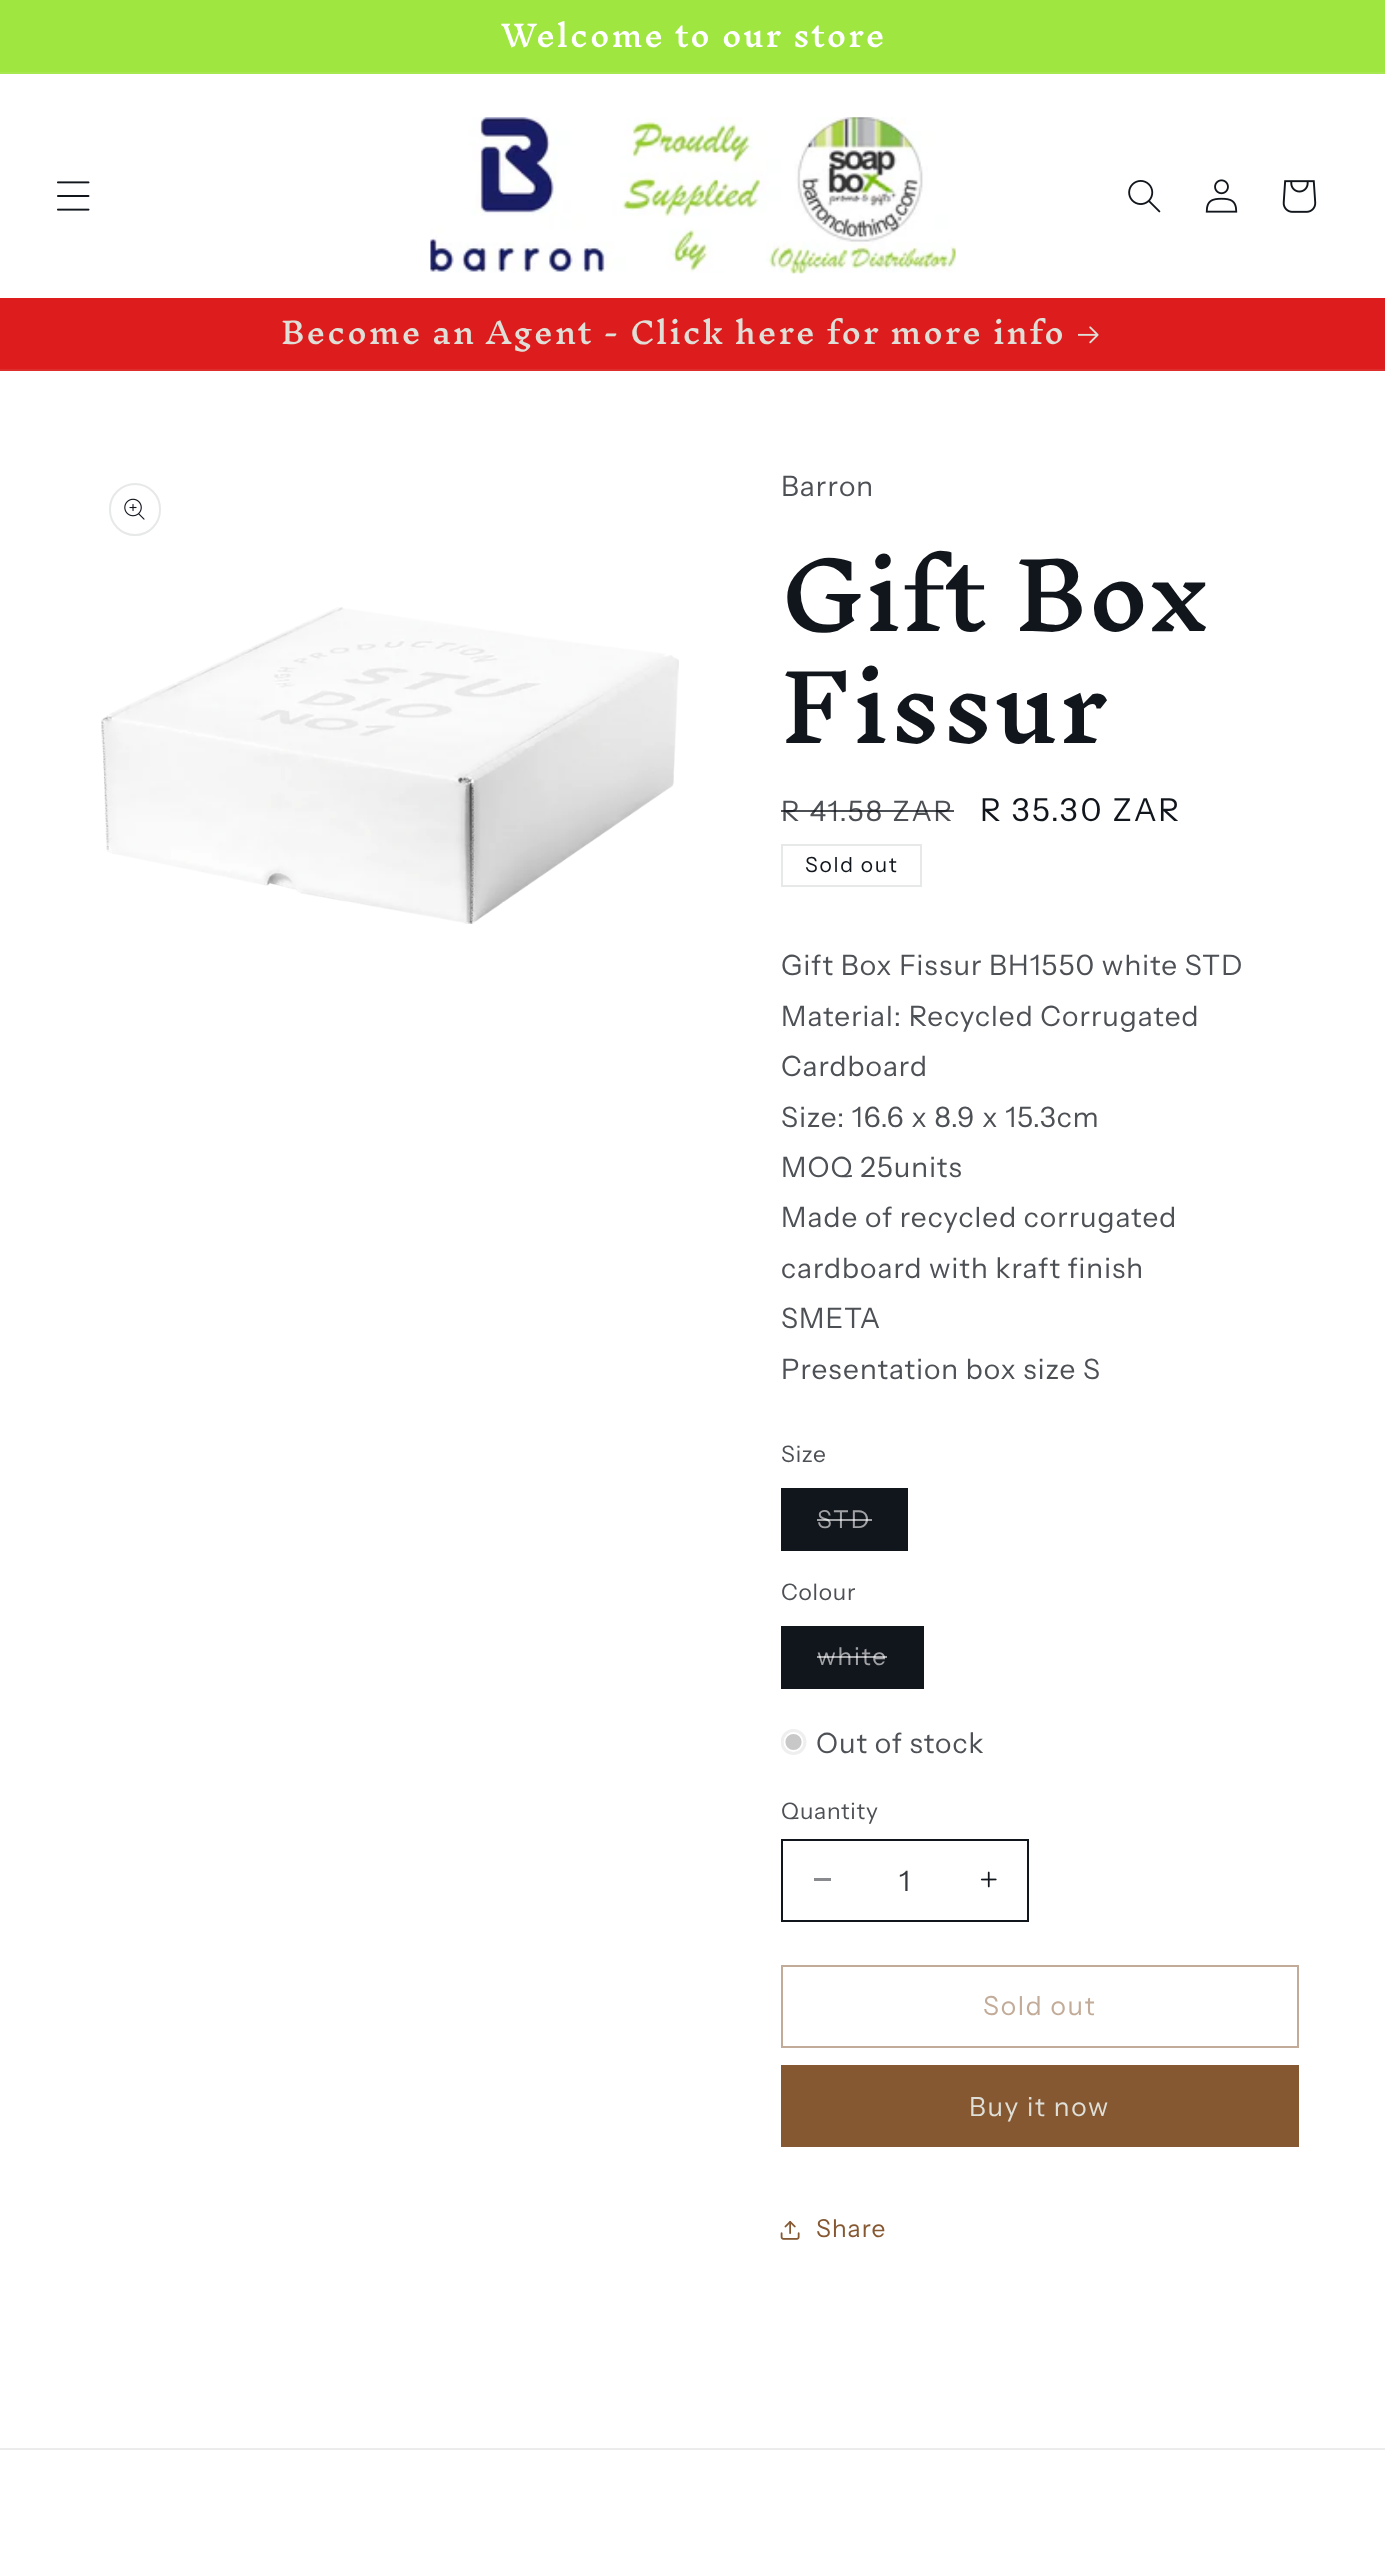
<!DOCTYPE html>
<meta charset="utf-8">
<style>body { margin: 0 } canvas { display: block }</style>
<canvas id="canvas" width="1385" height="2561"></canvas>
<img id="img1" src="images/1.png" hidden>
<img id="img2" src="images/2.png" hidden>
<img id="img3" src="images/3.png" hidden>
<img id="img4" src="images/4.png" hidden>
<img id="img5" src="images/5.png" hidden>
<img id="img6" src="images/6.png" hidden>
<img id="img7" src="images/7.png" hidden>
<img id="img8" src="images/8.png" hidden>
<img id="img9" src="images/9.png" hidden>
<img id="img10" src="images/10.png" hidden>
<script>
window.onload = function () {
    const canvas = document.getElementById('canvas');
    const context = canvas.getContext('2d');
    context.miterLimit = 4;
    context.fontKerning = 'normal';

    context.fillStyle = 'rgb(255, 255, 255)';
    context.fillRect(0, 0, 1385, 2561);
    context.fillStyle = 'rgb(159, 230, 65)';
    context.fillRect(0, 0, 1385, 72);
    context.fillStyle = 'rgb(167, 232, 80)';
    context.fillRect(0, 72, 1385, 2);
    context.drawImage(document.getElementById('img1'), 57, 181, 33, 30);
    context.drawImage(document.getElementById('img2'), 430, 117, 526, 157);
    context.drawImage(document.getElementById('img3'), 1128, 180, 33, 33);
    context.drawImage(document.getElementById('img4'), 1205, 179, 33, 34);
    context.drawImage(document.getElementById('img5'), 1282, 180, 35, 33);
    context.fillStyle = 'rgb(221, 29, 29)';
    context.fillRect(0, 298, 1385, 71);
    context.fillStyle = 'rgb(221, 45, 44)';
    context.fillRect(0, 369, 1385, 2);
    context.drawImage(document.getElementById('img6'), 1078, 326, 21, 18);
    context.beginPath();
    context.roundRect(110, 484, 50, 51, 25);
    context.strokeStyle = 'rgb(231, 232, 232)';
    context.lineWidth = 2;
    context.stroke();
    context.drawImage(document.getElementById('img7'), 124, 498, 21, 22);
    context.drawImage(document.getElementById('img8'), 101, 607, 578, 317);
    context.strokeRect(782, 845, 139, 41);
    context.fillStyle = 'rgb(17, 21, 28)';
    context.fillRect(781, 1488, 127, 63);
    context.fillRect(781, 1626, 143, 63);
    context.save();
    context.beginPath();
    context.rect(781, 1729, 26, 26);
    context.clip();
    context.fillStyle = 'rgb(239, 239, 239)';
    context.beginPath();
    context.arc(793.5, 1742, 13, 0, 2 * Math.PI);
    context.fill();
    context.restore();
    context.fillStyle = 'rgb(200, 200, 200)';
    context.beginPath();
    context.arc(793.5, 1742, 9, 0, 2 * Math.PI);
    context.fill();
    context.strokeStyle = 'rgb(255, 255, 255)';
    context.lineWidth = 1.8;
    context.stroke();
    context.fillStyle = 'rgb(136, 138, 142)';
    context.fillRect(814, 1878, 17, 3);
    context.drawImage(document.getElementById('img9'), 980, 1871, 17, 17);
    context.strokeStyle = 'rgb(17, 21, 28)';
    context.lineWidth = 2;
    context.strokeRect(782, 1840, 246, 81);
    context.strokeStyle = 'rgb(194, 172, 153)';
    context.strokeRect(782, 1966, 516, 81);
    context.fillStyle = 'rgb(133, 88, 50)';
    context.fillRect(781, 2065, 518, 82);
    context.drawImage(document.getElementById('img10'), 780, 2221, 20, 19);
    context.fillStyle = 'rgb(236, 236, 237)';
    context.fillRect(0, 2448, 1385, 2);
    context.letterSpacing = '1.75px';
    context.font = '500 29.6px Inknut Antiqua';
    context.fillStyle = 'rgb(255, 255, 255)';
    context.fillText('Welcome to our store', 501, 47);
    context.fillStyle = 'rgb(223, 223, 216)';
    context.fillText('Become an Agent - Click here for more info', 281, 344);
    context.letterSpacing = '1.05px';
    context.font = '28px Instrument Sans';
    context.fillStyle = 'rgb(77, 80, 85)';
    context.fillText('Barron', 781, 496);
    context.letterSpacing = '1.25px';
    context.font = '500 91px Inknut Antiqua';
    context.fillStyle = 'rgb(17, 21, 28)';
    context.fillText('Gift Box', 781, 631);
    context.fillText('Fissur', 781, 743);
    context.letterSpacing = '2.25px';
    context.font = '28px Instrument Sans';
    context.fillStyle = 'rgb(77, 80, 85)';
    context.fillText('R 41.58 ZAR', 781, 821);
    context.fillStyle = 'rgba(17, 21, 28, 0.75)';
    context.fillRect(781, 810, 173, 2);
    context.font = '31.5px Instrument Sans';
    context.fillStyle = 'rgb(17, 21, 28)';
    context.fillText('R 35.30 ZAR', 980, 821);
    context.letterSpacing = '1.75px';
    context.font = '21px Instrument Sans';
    context.fillText('Sold out', 805, 872);
    context.letterSpacing = '1.05px';
    context.font = '28px Instrument Sans';
    context.fillStyle = 'rgb(77, 80, 85)';
    context.fillText('Gift Box Fissur BH1550 white STD', 781, 975);
    context.fillText('Material: Recycled Corrugated', 781, 1026);
    context.fillText('Cardboard', 781, 1076);
    context.fillText('Size: 16.6 x 8.9 x 15.3cm', 781, 1127);
    context.fillText('MOQ 25units', 781, 1177);
    context.fillText('Made of recycled corrugated', 781, 1227);
    context.fillText('cardboard with kraft finish', 781, 1278);
    context.fillText('SMETA', 781, 1328);
    context.fillText('Presentation box size S', 781, 1379);
    context.letterSpacing = '0.75px';
    context.font = '22.75px Instrument Sans';
    context.fillText('Size', 781, 1462);
    context.letterSpacing = '1.75px';
    context.font = '24.5px Instrument Sans';
    context.fillStyle = 'rgb(160, 161, 164)';
    context.fillText('STD', 817, 1528);
    context.fillStyle = 'rgba(255, 255, 255, 0.6)';
    context.fillRect(817, 1519, 55, 2);
    context.letterSpacing = '0.75px';
    context.font = '22.75px Instrument Sans';
    context.fillStyle = 'rgb(77, 80, 85)';
    context.fillText('Colour', 781, 1600);
    context.letterSpacing = '1.75px';
    context.font = '24.5px Instrument Sans';
    context.fillStyle = 'rgb(160, 161, 164)';
    context.fillText('white', 817, 1665);
    context.fillStyle = 'rgba(255, 255, 255, 0.6)';
    context.fillRect(817, 1656, 70, 2);
    context.letterSpacing = '1.05px';
    context.font = '28px Instrument Sans';
    context.fillStyle = 'rgb(77, 80, 85)';
    context.fillText('Out of stock', 816, 1753);
    context.letterSpacing = '0.75px';
    context.font = '22.75px Instrument Sans';
    context.fillText('Quantity', 781, 1819);
    context.letterSpacing = '0px';
    context.font = '28px Instrument Sans';
    context.fillStyle = 'rgb(53, 56, 62)';
    context.fillText('1', 899, 1891);
    context.letterSpacing = '1.75px';
    context.font = '26.25px Instrument Sans';
    context.fillStyle = 'rgb(194, 172, 153)';
    context.fillText('Sold out', 983, 2015);
    context.fillStyle = 'rgb(223, 223, 216)';
    context.fillText('Buy it now', 969, 2116);
    context.letterSpacing = '1.05px';
    context.font = '24.5px Instrument Sans';
    context.fillStyle = 'rgb(133, 88, 50)';
    context.fillText('Share', 816, 2237);
};
</script>
